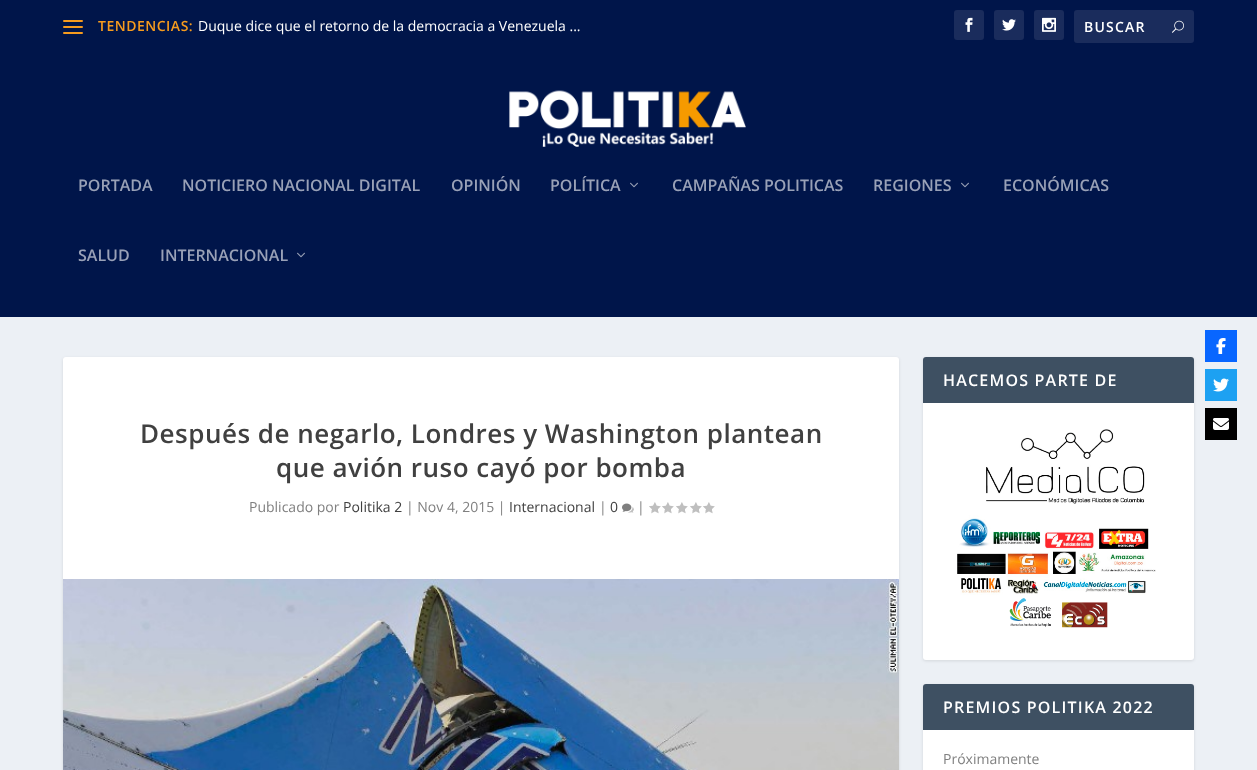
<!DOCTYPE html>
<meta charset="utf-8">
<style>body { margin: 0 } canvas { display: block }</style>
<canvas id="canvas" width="1257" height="770"></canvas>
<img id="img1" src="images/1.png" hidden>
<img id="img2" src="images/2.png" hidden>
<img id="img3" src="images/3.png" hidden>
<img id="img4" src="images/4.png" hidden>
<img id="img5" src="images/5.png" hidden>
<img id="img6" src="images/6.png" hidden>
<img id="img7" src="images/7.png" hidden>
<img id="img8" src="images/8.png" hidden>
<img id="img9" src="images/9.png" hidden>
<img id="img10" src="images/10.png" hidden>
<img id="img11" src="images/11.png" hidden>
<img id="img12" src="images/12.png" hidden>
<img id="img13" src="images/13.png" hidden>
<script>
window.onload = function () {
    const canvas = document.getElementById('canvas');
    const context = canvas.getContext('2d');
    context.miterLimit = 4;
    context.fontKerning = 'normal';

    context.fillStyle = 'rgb(236, 240, 245)';
    context.fillRect(0, 0, 1257, 770);
    context.fillStyle = 'rgb(0, 21, 74)';
    context.fillRect(0, 0, 1257, 317);
    context.fillStyle = 'rgb(246, 155, 30)';
    context.beginPath();
    context.roundRect(63, 20, 20, 2, 1);
    context.fill();
    context.beginPath();
    context.roundRect(63, 26, 20, 2, 1);
    context.fill();
    context.beginPath();
    context.roundRect(63, 32, 20, 2, 1);
    context.fill();
    context.fillStyle = 'rgb(26, 44, 92)';
    context.beginPath();
    context.roundRect(954, 10, 30, 30, 3);
    context.fill();
    context.drawImage(document.getElementById('img1'), 965, 17, 8, 15);
    context.beginPath();
    context.roundRect(994, 10, 30, 30, 3);
    context.fill();
    context.drawImage(document.getElementById('img2'), 1002, 19, 14, 12);
    context.beginPath();
    context.roundRect(1034, 10, 30, 30, 3);
    context.fill();
    context.drawImage(document.getElementById('img3'), 1042, 17, 14, 15);
    context.beginPath();
    context.roundRect(1074, 10, 120, 33, 3);
    context.fill();
    context.drawImage(document.getElementById('img4'), 1172, 20, 12, 13);
    context.drawImage(document.getElementById('img5'), 509, 90, 237, 57);
    context.drawImage(document.getElementById('img6'), 630, 182, 8, 6);
    context.drawImage(document.getElementById('img6'), 961, 182, 8, 6);
    context.drawImage(document.getElementById('img6'), 297, 252, 8, 6);
    context.fillStyle = 'rgba(0, 0, 0, 0.1)';
    context.filter = 'blur(1.5px)';
    context.beginPath();
    context.roundRect(63, 358, 836, 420, 3);
    context.fill();
    context.filter = 'none';
    context.fillStyle = 'rgb(255, 255, 255)';
    context.beginPath();
    context.roundRect(63, 357, 836, 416, 3);
    context.fill();
    context.drawImage(document.getElementById('img7'), 622, 503, 12, 10);
    context.drawImage(document.getElementById('img8'), 649, 502, 12, 12);
    context.drawImage(document.getElementById('img8'), 662, 502, 12, 12);
    context.drawImage(document.getElementById('img8'), 676, 502, 12, 12);
    context.drawImage(document.getElementById('img8'), 690, 502, 12, 12);
    context.drawImage(document.getElementById('img8'), 703, 502, 12, 12);
    context.drawImage(document.getElementById('img9'), 63, 579, 836, 191);
    context.fillStyle = 'rgba(0, 0, 0, 0.1)';
    context.filter = 'blur(1.5px)';
    context.beginPath();
    context.roundRect(923, 358, 271, 303, 3);
    context.fill();
    context.filter = 'none';
    context.fillStyle = 'rgb(255, 255, 255)';
    context.beginPath();
    context.roundRect(923, 357, 271, 303, 3);
    context.fill();
    context.fillStyle = 'rgb(62, 80, 98)';
    context.beginPath();
    context.roundRect(923, 357, 271, 46, [3, 3, 0, 0]);
    context.fill();
    context.drawImage(document.getElementById('img10'), 957, 429, 199, 199);
    context.fillStyle = 'rgba(0, 0, 0, 0.1)';
    context.filter = 'blur(1.5px)';
    context.beginPath();
    context.roundRect(923, 685, 271, 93, 3);
    context.fill();
    context.filter = 'none';
    context.fillStyle = 'rgb(255, 255, 255)';
    context.beginPath();
    context.roundRect(923, 684, 271, 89, 3);
    context.fill();
    context.fillStyle = 'rgb(62, 80, 98)';
    context.beginPath();
    context.roundRect(923, 684, 271, 46, [3, 3, 0, 0]);
    context.fill();
    context.fillStyle = 'rgb(8, 102, 255)';
    context.fillRect(1205, 330, 32, 32);
    context.drawImage(document.getElementById('img11'), 1216, 338, 10, 16);
    context.fillStyle = 'rgb(29, 161, 242)';
    context.fillRect(1205, 369, 32, 32);
    context.drawImage(document.getElementById('img12'), 1213, 378, 16, 14);
    context.fillStyle = 'rgb(0, 0, 0)';
    context.fillRect(1205, 408, 32, 32);
    context.drawImage(document.getElementById('img13'), 1213, 418, 16, 12);
    context.letterSpacing = '0.5px';
    context.font = '600 14px Open Sans';
    context.fillStyle = 'rgb(246, 155, 30)';
    context.fillText('TENDENCIAS:', 98, 31);
    context.letterSpacing = '0px';
    context.font = '14px Open Sans';
    context.fillStyle = 'rgb(255, 255, 255)';
    context.fillText('Duque dice que el retorno de la democracia a Venezuela ...', 198, 31);
    context.letterSpacing = '1.2px';
    context.font = '600 14px Open Sans';
    context.fillText('BUSCAR', 1084, 32);
    context.letterSpacing = '0px';
    context.font = '600 16px Open Sans';
    context.fillStyle = 'rgb(153, 161, 183)';
    context.fillText('PORTADA', 78, 191);
    context.fillText('NOTICIERO NACIONAL DIGITAL', 182, 191);
    context.fillText('OPINIÓN', 451, 191);
    context.fillText('POLÍTICA', 550, 191);
    context.fillText('CAMPAÑAS POLITICAS', 672, 191);
    context.fillText('REGIONES', 873, 191);
    context.fillText('ECONÓMICAS', 1003, 191);
    context.fillText('SALUD', 78, 261);
    context.fillText('INTERNACIONAL', 160, 261);
    context.letterSpacing = '0.5px';
    context.font = '600 26px Open Sans';
    context.fillStyle = 'rgb(64, 64, 64)';
    context.fillText('Después de negarlo, Londres y Washington plantean', 140, 443);
    context.fillText('que avión ruso cayó por bomba', 276, 477);
    context.letterSpacing = '0px';
    context.font = '14px Open Sans';
    context.fillStyle = 'rgb(128, 128, 128)';
    context.fillText('Publicado por', 249, 512);
    context.fillStyle = 'rgb(64, 64, 64)';
    context.fillText('Politika 2', 343, 512);
    context.fillStyle = 'rgb(128, 128, 128)';
    context.fillText('| Nov 4, 2015 |', 406, 512);
    context.fillStyle = 'rgb(64, 64, 64)';
    context.fillText('Internacional', 509, 512);
    context.fillStyle = 'rgb(128, 128, 128)';
    context.fillText('|', 599, 512);
    context.fillStyle = 'rgb(64, 64, 64)';
    context.fillText('0', 610, 512);
    context.fillStyle = 'rgb(128, 128, 128)';
    context.fillText('|', 637, 512);
    context.letterSpacing = '1.2px';
    context.font = '600 16px Open Sans';
    context.fillStyle = 'rgb(255, 255, 255)';
    context.fillText('HACEMOS PARTE DE', 943, 386);
    context.fillText('PREMIOS POLITIKA 2022', 943, 713);
    context.letterSpacing = '0px';
    context.font = '14px Open Sans';
    context.fillStyle = 'rgb(128, 128, 128)';
    context.fillText('Próximamente', 943, 764);
};
</script>
